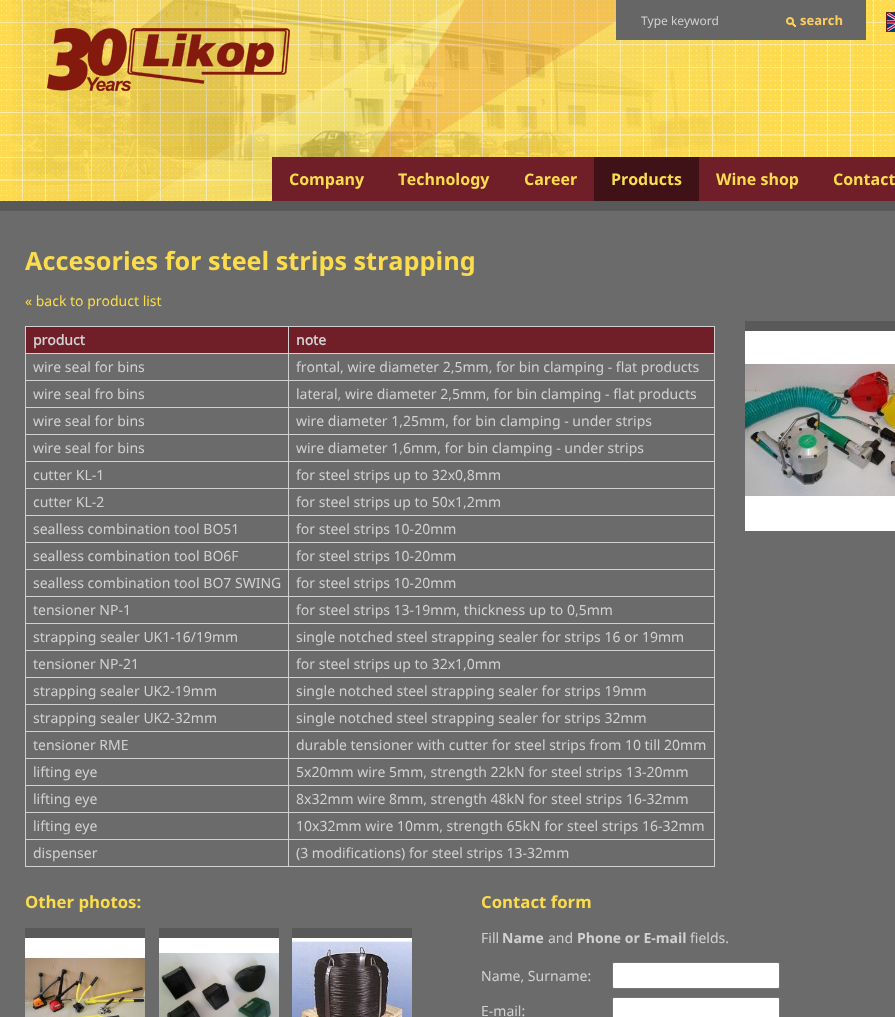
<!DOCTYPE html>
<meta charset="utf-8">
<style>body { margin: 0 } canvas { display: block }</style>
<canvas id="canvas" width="895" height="1017"></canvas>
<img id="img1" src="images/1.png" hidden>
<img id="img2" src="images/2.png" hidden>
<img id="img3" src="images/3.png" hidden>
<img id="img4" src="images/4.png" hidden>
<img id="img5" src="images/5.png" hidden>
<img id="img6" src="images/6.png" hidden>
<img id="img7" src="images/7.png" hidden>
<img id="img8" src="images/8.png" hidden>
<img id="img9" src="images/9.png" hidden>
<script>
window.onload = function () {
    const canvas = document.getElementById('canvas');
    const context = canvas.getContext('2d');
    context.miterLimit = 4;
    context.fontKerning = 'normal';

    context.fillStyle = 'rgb(255, 255, 255)';
    context.fillRect(0, 0, 895, 1017);
    context.drawImage(document.getElementById('img1'), 0, 0, 895, 201);
    context.drawImage(document.getElementById('img2'), 11, 0, 750, 201);
    context.fillStyle = 'rgb(102, 102, 102)';
    context.fillRect(616, 0, 250, 40);
    context.drawImage(document.getElementById('img3'), 786, 17, 10, 10);
    context.strokeStyle = 'rgb(105, 37, 37)';
    context.strokeRect(886.5, 12.5, 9, 19);
    context.drawImage(document.getElementById('img4'), 887, 13, 8, 18);
    context.drawImage(document.getElementById('img5'), 47, 28, 243, 63);
    context.fillStyle = 'rgb(112, 31, 41)';
    context.fillRect(272, 157, 322, 44);
    context.fillStyle = 'rgb(62, 18, 23)';
    context.fillRect(594, 157, 105, 44);
    context.fillStyle = 'rgb(112, 31, 41)';
    context.fillRect(699, 157, 196, 44);
    context.fillStyle = 'rgb(107, 107, 107)';
    context.fillRect(0, 211, 895, 806);
    context.fillStyle = 'rgb(89, 89, 89)';
    context.fillRect(0, 201, 895, 10);
    context.fillStyle = 'rgb(209, 209, 209)';
    context.fillRect(25, 326, 690, 1);
    context.fillRect(714, 326, 1, 541);
    context.fillStyle = 'rgb(112, 31, 41)';
    context.fillRect(26, 327, 262, 26);
    context.fillStyle = 'rgb(209, 209, 209)';
    context.fillRect(25, 353, 689, 1);
    context.fillRect(25, 327, 1, 27);
    context.fillStyle = 'rgb(112, 31, 41)';
    context.fillRect(289, 327, 425, 26);
    context.fillStyle = 'rgb(209, 209, 209)';
    context.fillRect(288, 327, 1, 27);
    context.fillRect(25, 380, 689, 1);
    context.fillRect(25, 354, 1, 27);
    context.fillRect(288, 354, 1, 27);
    context.fillRect(25, 407, 689, 1);
    context.fillRect(25, 381, 1, 27);
    context.fillRect(288, 381, 1, 27);
    context.fillRect(25, 434, 689, 1);
    context.fillRect(25, 408, 1, 27);
    context.fillRect(288, 408, 1, 27);
    context.fillRect(25, 461, 689, 1);
    context.fillRect(25, 435, 1, 27);
    context.fillRect(288, 435, 1, 27);
    context.fillRect(25, 488, 689, 1);
    context.fillRect(25, 462, 1, 27);
    context.fillRect(288, 462, 1, 27);
    context.fillRect(25, 515, 689, 1);
    context.fillRect(25, 489, 1, 27);
    context.fillRect(288, 489, 1, 27);
    context.fillRect(25, 542, 689, 1);
    context.fillRect(25, 516, 1, 27);
    context.fillRect(288, 516, 1, 27);
    context.fillRect(25, 569, 689, 1);
    context.fillRect(25, 543, 1, 27);
    context.fillRect(288, 543, 1, 27);
    context.fillRect(25, 596, 689, 1);
    context.fillRect(25, 570, 1, 27);
    context.fillRect(288, 570, 1, 27);
    context.fillRect(25, 623, 689, 1);
    context.fillRect(25, 597, 1, 27);
    context.fillRect(288, 597, 1, 27);
    context.fillRect(25, 650, 689, 1);
    context.fillRect(25, 624, 1, 27);
    context.fillRect(288, 624, 1, 27);
    context.fillRect(25, 677, 689, 1);
    context.fillRect(25, 651, 1, 27);
    context.fillRect(288, 651, 1, 27);
    context.fillRect(25, 704, 689, 1);
    context.fillRect(25, 678, 1, 27);
    context.fillRect(288, 678, 1, 27);
    context.fillRect(25, 731, 689, 1);
    context.fillRect(25, 705, 1, 27);
    context.fillRect(288, 705, 1, 27);
    context.fillRect(25, 758, 689, 1);
    context.fillRect(25, 732, 1, 27);
    context.fillRect(288, 732, 1, 27);
    context.fillRect(25, 785, 689, 1);
    context.fillRect(25, 759, 1, 27);
    context.fillRect(288, 759, 1, 27);
    context.fillRect(25, 812, 689, 1);
    context.fillRect(25, 786, 1, 27);
    context.fillRect(288, 786, 1, 27);
    context.fillRect(25, 839, 689, 1);
    context.fillRect(25, 813, 1, 27);
    context.fillRect(288, 813, 1, 27);
    context.fillRect(25, 866, 689, 1);
    context.fillRect(25, 840, 1, 27);
    context.fillRect(288, 840, 1, 27);
    context.fillStyle = 'rgb(89, 89, 89)';
    context.fillRect(745, 321, 150, 10);
    context.drawImage(document.getElementById('img6'), 745, 331, 150, 200);
    context.fillRect(25, 928, 120, 10);
    context.fillRect(159, 928, 120, 10);
    context.fillRect(292, 928, 120, 10);
    context.drawImage(document.getElementById('img7'), 25, 938, 120, 79);
    context.drawImage(document.getElementById('img8'), 159, 938, 120, 79);
    context.drawImage(document.getElementById('img9'), 292, 938, 120, 79);
    context.fillStyle = 'rgb(255, 255, 255)';
    context.beginPath();
    context.roundRect(612.5, 962.5, 167, 26, 1.5);
    context.fill();
    context.strokeStyle = 'rgb(118, 118, 118)';
    context.stroke();
    context.beginPath();
    context.roundRect(612.5, 997.5, 167, 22, 1.5);
    context.fill();
    context.stroke();
    context.font = '12px Noto Sans';
    context.fillStyle = 'rgb(209, 209, 209)';
    context.fillText('Type keyword', 641, 25);
    context.font = 'bold 13px Noto Sans';
    context.fillStyle = 'rgb(253, 205, 95)';
    context.fillText('search', 800, 25);
    context.font = 'bold 16px Noto Sans';
    context.fillStyle = 'rgb(251, 220, 77)';
    context.fillText('Company', 289, 185);
    context.fillText('Technology', 398, 185);
    context.fillText('Career', 524, 185);
    context.fillText('Products', 611, 185);
    context.fillText('Wine shop', 716, 185);
    context.fillText('Contact', 833, 185);
    context.font = 'bold 25.25px Noto Sans';
    context.fillText('Accesories for steel strips strapping', 25, 270);
    context.font = '14px Noto Sans';
    context.fillText('« back to product list', 25, 306);
    context.font = 'bold 14px "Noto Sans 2"';
    context.fillStyle = 'rgb(209, 209, 209)';
    context.fillText('product', 33, 345);
    context.fillText('note', 296, 345);
    context.font = '14px Noto Sans';
    context.fillText('wire seal for bins', 33, 372);
    context.fillText('frontal, wire diameter 2,5mm, for bin clamping - flat products', 296, 372);
    context.fillText('wire seal fro bins', 33, 399);
    context.fillText('lateral, wire diameter 2,5mm, for bin clamping - flat products', 296, 399);
    context.fillText('wire seal for bins', 33, 426);
    context.fillText('wire diameter 1,25mm, for bin clamping - under strips', 296, 426);
    context.fillText('wire seal for bins', 33, 453);
    context.fillText('wire diameter 1,6mm, for bin clamping - under strips', 296, 453);
    context.fillText('cutter KL-1', 33, 480);
    context.fillText('for steel strips up to 32x0,8mm', 296, 480);
    context.fillText('cutter KL-2', 33, 507);
    context.fillText('for steel strips up to 50x1,2mm', 296, 507);
    context.fillText('sealless combination tool BO51', 33, 534);
    context.fillText('for steel strips 10-20mm', 296, 534);
    context.fillText('sealless combination tool BO6F', 33, 561);
    context.fillText('for steel strips 10-20mm', 296, 561);
    context.fillText('sealless combination tool BO7 SWING', 33, 588);
    context.fillText('for steel strips 10-20mm', 296, 588);
    context.fillText('tensioner NP-1', 33, 615);
    context.fillText('for steel strips 13-19mm, thickness up to 0,5mm', 296, 615);
    context.fillText('strapping sealer UK1-16/19mm', 33, 642);
    context.fillText('single notched steel strapping sealer for strips 16 or 19mm', 296, 642);
    context.fillText('tensioner NP-21', 33, 669);
    context.fillText('for steel strips up to 32x1,0mm', 296, 669);
    context.fillText('strapping sealer UK2-19mm', 33, 696);
    context.fillText('single notched steel strapping sealer for strips 19mm', 296, 696);
    context.fillText('strapping sealer UK2-32mm', 33, 723);
    context.fillText('single notched steel strapping sealer for strips 32mm', 296, 723);
    context.fillText('tensioner RME', 33, 750);
    context.fillText('durable tensioner with cutter for steel strips from 10 till 20mm', 296, 750);
    context.fillText('lifting eye', 33, 777);
    context.fillText('5x20mm wire 5mm, strength 22kN for steel strips 13-20mm', 296, 777);
    context.fillText('lifting eye', 33, 804);
    context.fillText('8x32mm wire 8mm, strength 48kN for steel strips 16-32mm', 296, 804);
    context.fillText('lifting eye', 33, 831);
    context.fillText('10x32mm wire 10mm, strength 65kN for steel strips 16-32mm', 296, 831);
    context.fillText('dispenser', 33, 858);
    context.fillText('(3 modifications) for steel strips 13-32mm', 296, 858);
    context.font = 'bold 16.75px Noto Sans';
    context.fillStyle = 'rgb(251, 220, 77)';
    context.fillText('Other photos:', 25, 908);
    context.fillText('Contact form', 481, 908);
    context.font = '14px Noto Sans';
    context.fillStyle = 'rgb(209, 209, 209)';
    context.fillText('Fill', 481, 943);
    context.font = 'bold 14px Noto Sans';
    context.fillText('Name', 502, 943);
    context.font = '14px Noto Sans';
    context.fillText('and', 548, 943);
    context.font = 'bold 14px Noto Sans';
    context.fillText('Phone or E-mail', 577, 943);
    context.font = '14px Noto Sans';
    context.fillText('fields.', 690, 943);
    context.fillText('Name, Surname:', 481, 981);
    context.fillText('E-mail:', 481, 1016);
};
</script>
